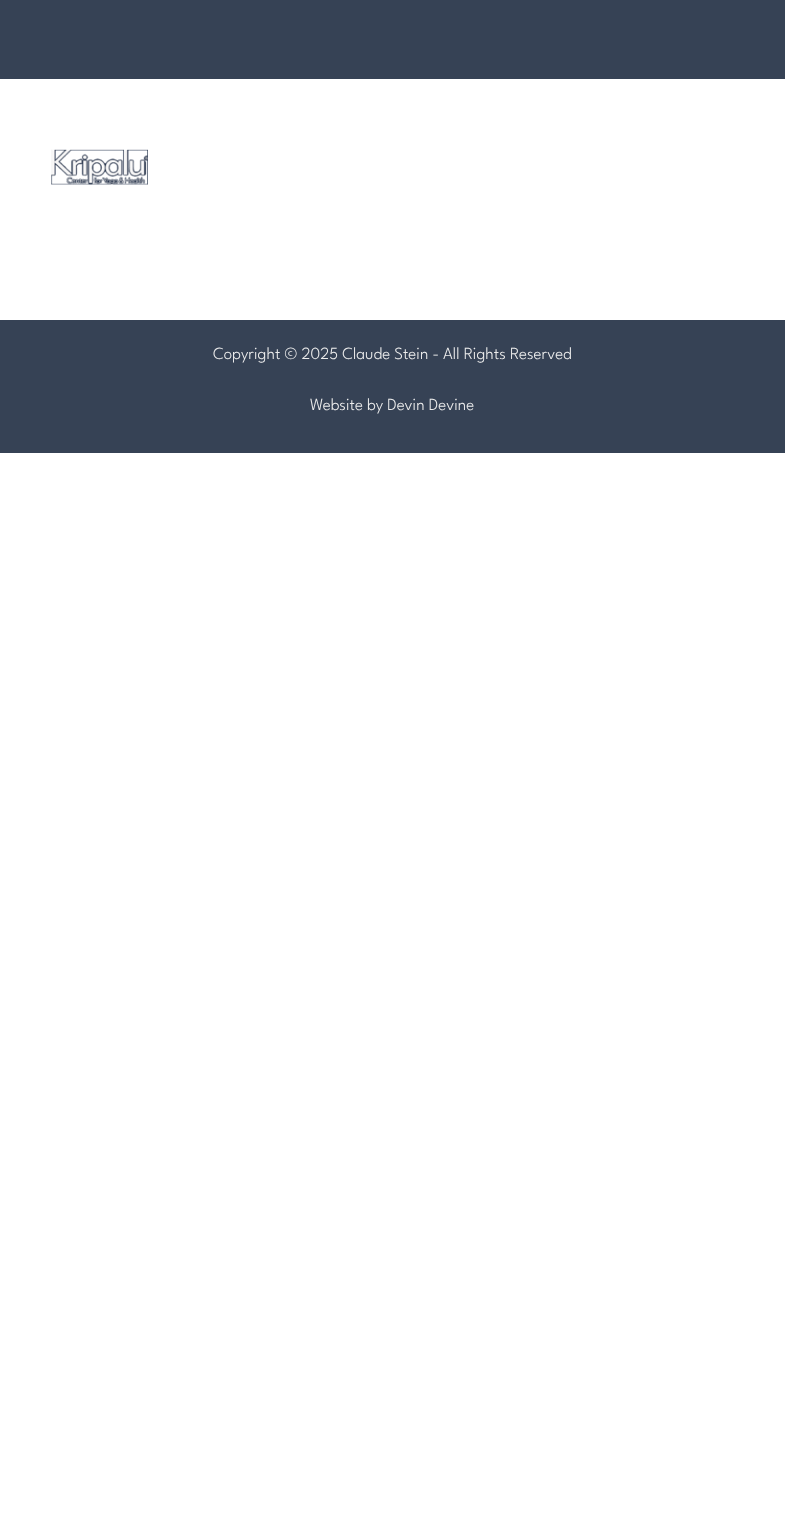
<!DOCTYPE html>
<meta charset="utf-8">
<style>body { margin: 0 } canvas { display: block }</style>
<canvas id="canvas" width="785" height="1528"></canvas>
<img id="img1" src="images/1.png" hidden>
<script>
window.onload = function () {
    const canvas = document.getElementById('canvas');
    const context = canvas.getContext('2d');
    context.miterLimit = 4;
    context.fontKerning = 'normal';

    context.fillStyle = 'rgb(255, 255, 255)';
    context.fillRect(0, 0, 785, 1528);
    context.fillStyle = 'rgb(54, 66, 85)';
    context.fillRect(0, 0, 785, 79);
    context.drawImage(document.getElementById('img1'), 51, 149, 97, 36);
    context.fillRect(0, 320, 785, 133);
    context.font = '300 17px League Spartan';
    context.fillStyle = 'rgb(237, 237, 237)';
    context.fillText('Copyright © 2025 Claude Stein - All Rights Reserved', 213, 359);
    context.fillText('Website by Devin Devine', 310, 410);
};
</script>
